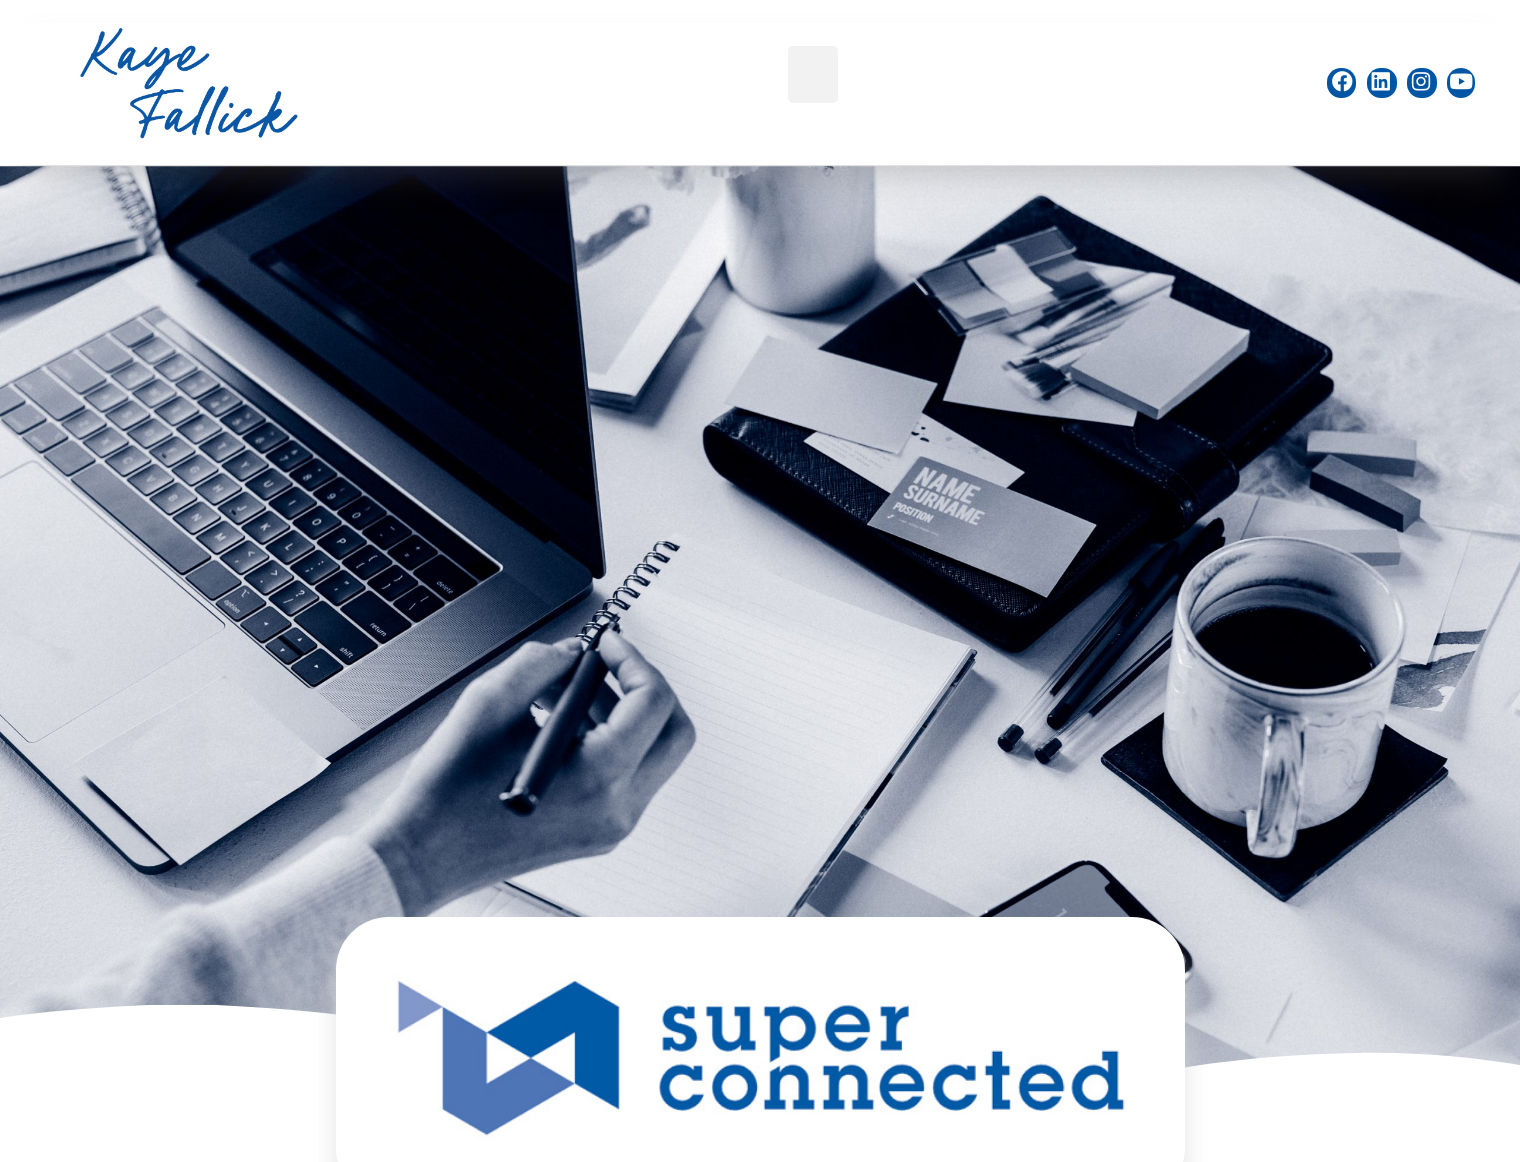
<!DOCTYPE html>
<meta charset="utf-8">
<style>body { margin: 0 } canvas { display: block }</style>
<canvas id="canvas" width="1520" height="1162"></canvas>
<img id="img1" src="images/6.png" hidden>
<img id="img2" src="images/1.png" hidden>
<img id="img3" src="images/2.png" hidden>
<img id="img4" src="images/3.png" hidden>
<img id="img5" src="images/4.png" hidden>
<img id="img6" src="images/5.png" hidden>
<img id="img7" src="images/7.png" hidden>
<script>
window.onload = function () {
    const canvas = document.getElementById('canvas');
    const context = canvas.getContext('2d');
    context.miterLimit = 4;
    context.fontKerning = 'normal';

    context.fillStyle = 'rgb(255, 255, 255)';
    context.fillRect(0, 0, 1520, 1162);
    context.drawImage(document.getElementById('img1'), 0, 166, 1520, 902);
    context.fillStyle = 'rgba(106, 106, 107, 0.32)';
    context.filter = 'blur(17.5px)';
    context.beginPath();
    context.rect(21, 51, 1479, 121);
    context.fill();
    context.filter = 'none';
    context.fillStyle = 'rgb(255, 255, 255)';
    context.fillRect(0, 23, 1520, 142);
    context.drawImage(document.getElementById('img2'), 80, 28, 218, 111);
    context.fillStyle = 'rgb(242, 242, 242)';
    context.beginPath();
    context.roundRect(788, 46, 50, 57, 5);
    context.fill();
    context.fillStyle = 'rgb(0, 85, 165)';
    context.beginPath();
    context.roundRect(1327, 68, 29, 30, 14);
    context.fill();
    context.drawImage(document.getElementById('img3'), 1332, 71, 21, 21);
    context.beginPath();
    context.roundRect(1367, 68, 30, 30, 14);
    context.fill();
    context.drawImage(document.getElementById('img4'), 1371, 72, 19, 19);
    context.beginPath();
    context.roundRect(1407, 68, 30, 30, 14);
    context.fill();
    context.drawImage(document.getElementById('img5'), 1411, 72, 20, 19);
    context.beginPath();
    context.roundRect(1447, 68, 28, 30, 14);
    context.fill();
    context.drawImage(document.getElementById('img6'), 1450, 73, 23, 17);
    context.save();
    context.beginPath();
    context.rect(0, 1005, 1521, 126);
    context.clip();
    context.fillStyle = 'rgb(255, 255, 255)';
    context.beginPath();
    context.moveTo(896, 1121);
    context.bezierCurveTo(857, 1124, 806, 1121, 764, 1114);
    context.bezierCurveTo(723, 1108, 640, 1085, 588, 1069);
    context.bezierCurveTo(455, 1029, 354, 1013, 251, 1007);
    context.bezierCurveTo(209, 1004, 166, 1002, 70, 1010);
    context.bezierCurveTo(-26, 1017, -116, 1042, -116, 1042);
    context.lineTo(-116, 1129);
    context.lineTo(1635, 1129);
    context.lineTo(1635, 1091);
    context.bezierCurveTo(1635, 1091, 1509, 1050, 1358, 1053);
    context.bezierCurveTo(1289, 1054, 1195, 1061, 1123, 1081);
    context.bezierCurveTo(1086, 1091, 1032, 1104, 983, 1111);
    context.bezierCurveTo(936, 1119, 914, 1120, 896, 1121);
    context.closePath();
    context.fill();
    context.restore();
    context.fillStyle = 'rgba(221, 221, 221, 0.65)';
    context.filter = 'blur(11.5px)';
    context.beginPath();
    context.roundRect(333, 940, 855, 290, 56);
    context.fill();
    context.filter = 'none';
    context.fillStyle = 'rgb(255, 255, 255)';
    context.beginPath();
    context.roundRect(336, 917, 849, 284, 53);
    context.fill();
    context.drawImage(document.getElementById('img7'), 392, 973, 737, 167);
};
</script>
